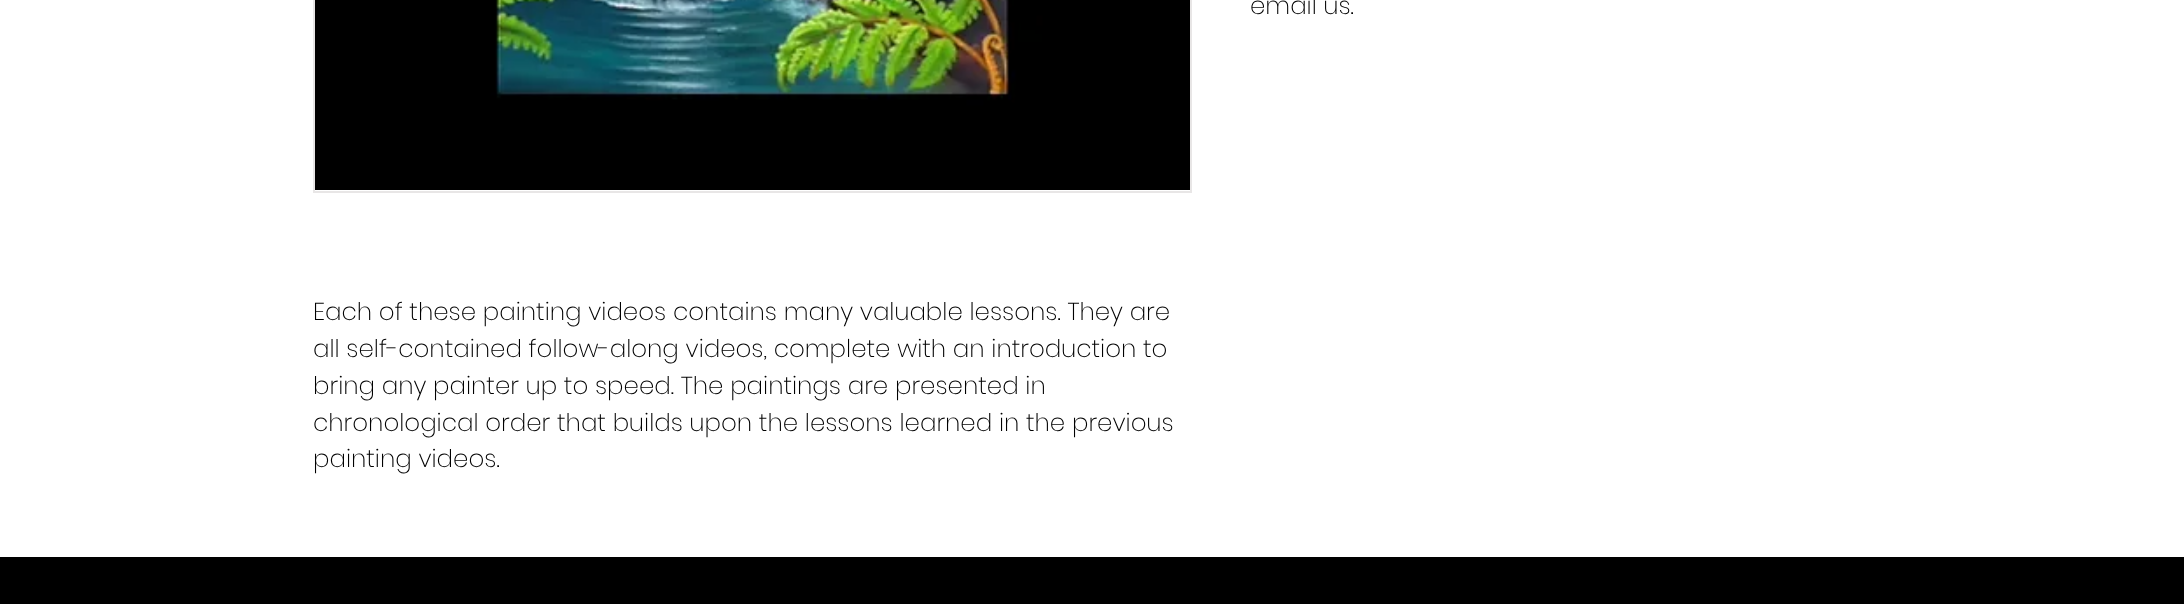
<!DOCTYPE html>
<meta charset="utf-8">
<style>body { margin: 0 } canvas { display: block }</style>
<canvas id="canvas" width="2184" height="604"></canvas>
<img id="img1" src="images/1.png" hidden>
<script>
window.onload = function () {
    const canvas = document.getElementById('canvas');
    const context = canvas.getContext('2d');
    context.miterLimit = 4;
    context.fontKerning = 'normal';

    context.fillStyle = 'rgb(255, 255, 255)';
    context.fillRect(0, 0, 2184, 604);
    context.strokeStyle = 'rgb(232, 230, 230)';
    context.lineWidth = 2;
    context.strokeRect(314, -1, 877, 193);
    context.drawImage(document.getElementById('img1'), 315, 0, 875, 190);
    context.fillStyle = 'rgb(0, 0, 0)';
    context.fillRect(0, 557, 2184, 47);
    context.font = '200 24.5px Poppins';
    context.fillText('email us.', 1250, 14);
    context.fillText('Each of these painting videos contains many valuable lessons. They are', 313, 320);
    context.fillText('all self-contained follow-along videos, complete with an introduction to', 313, 357);
    context.fillText('bring any painter up to speed. The paintings are presented in', 313, 394);
    context.fillText('chronological order that builds upon the lessons learned in the previous', 313, 431);
    context.fillText('painting videos.', 313, 467);
};
</script>
